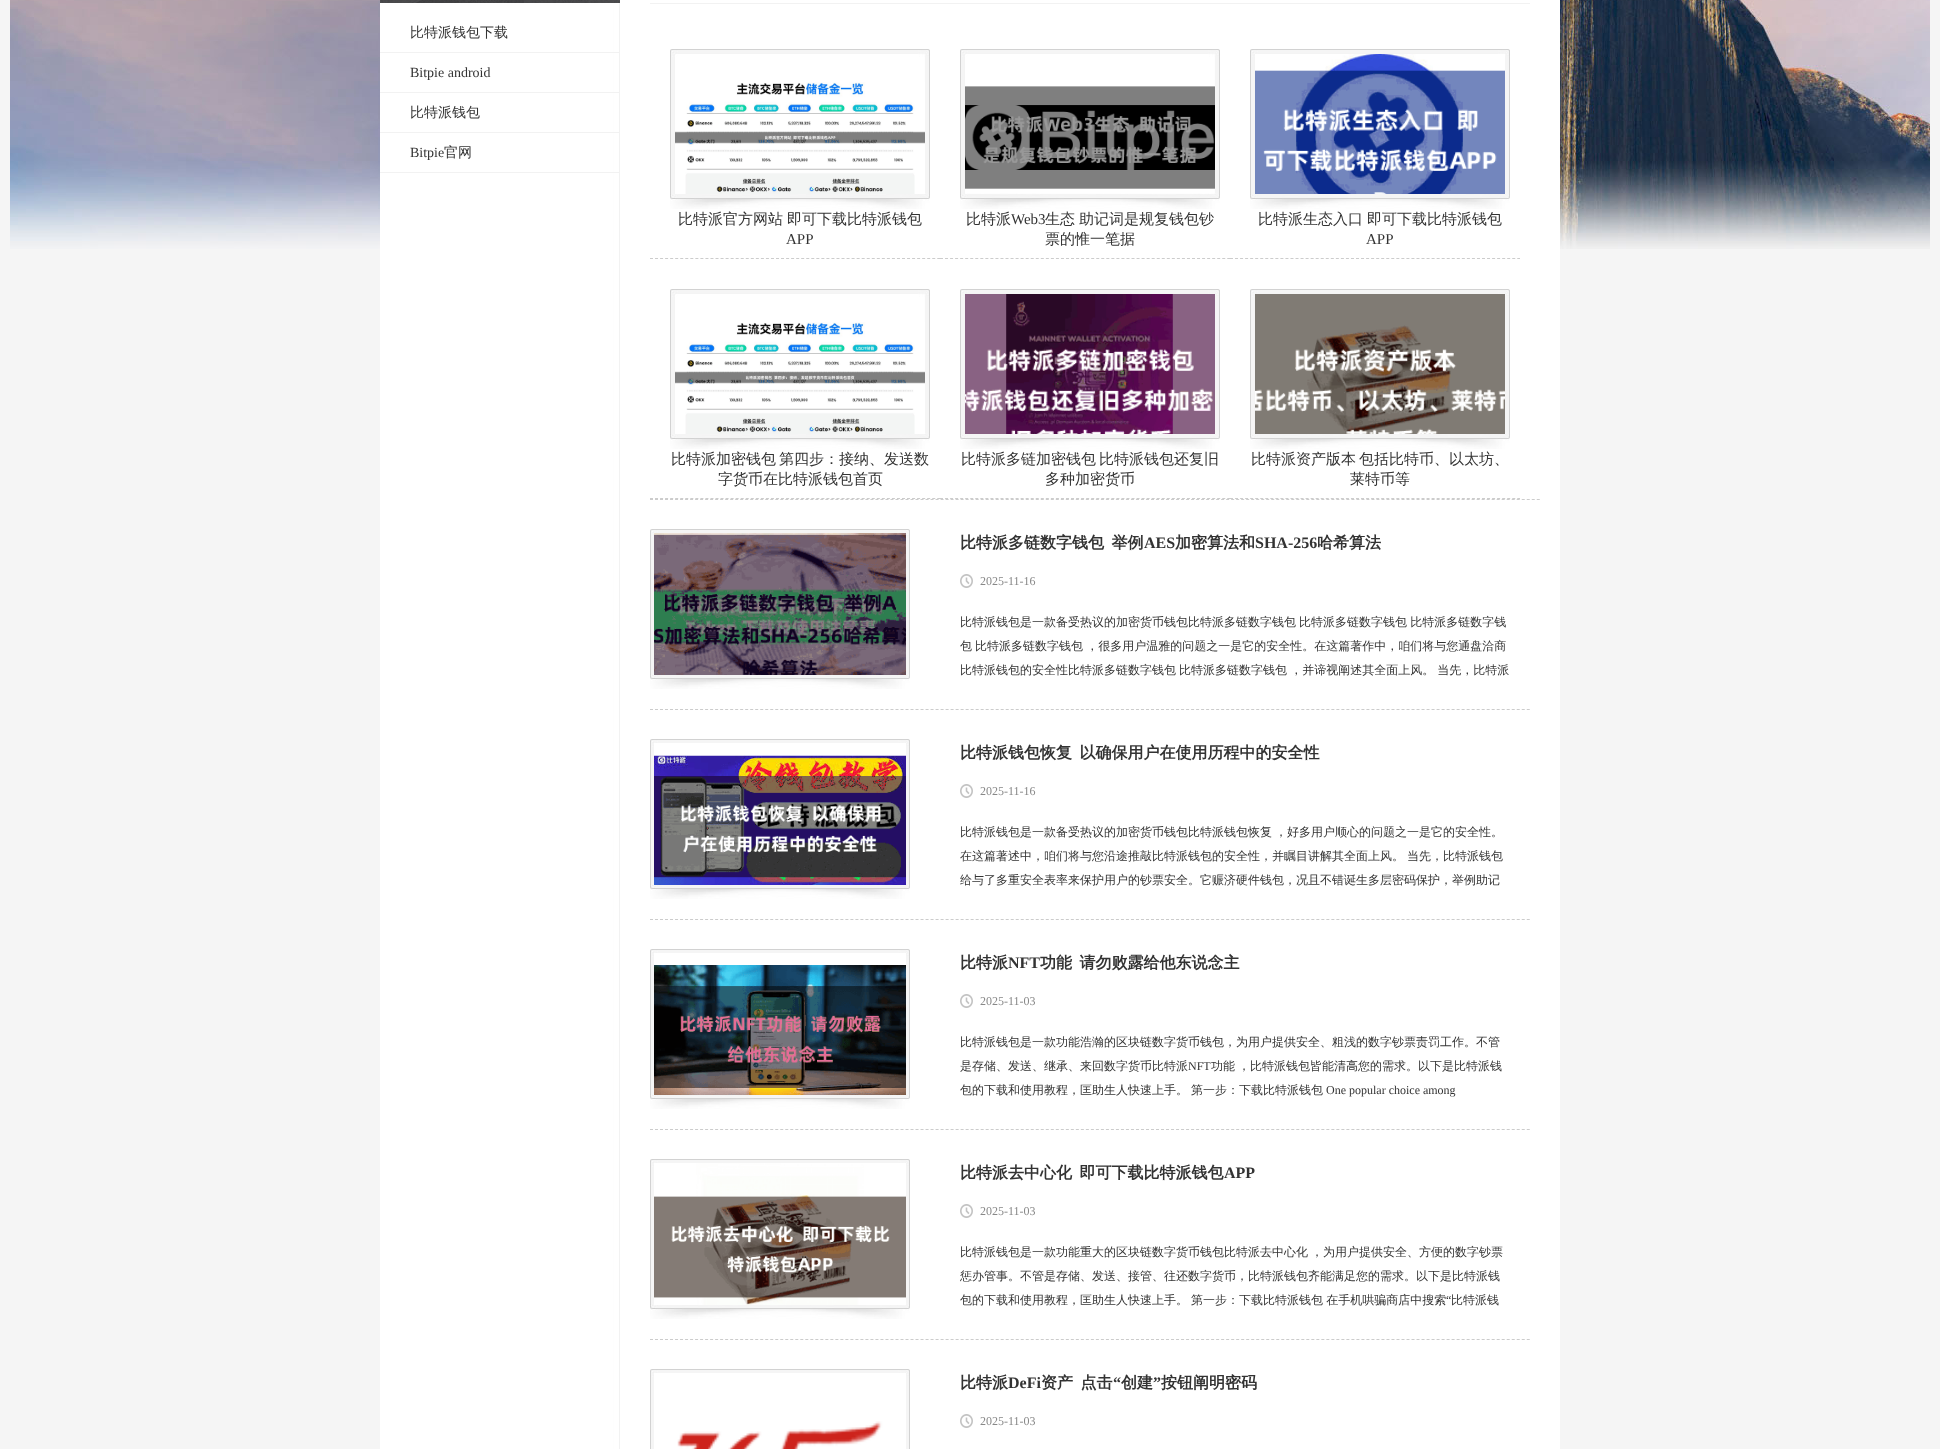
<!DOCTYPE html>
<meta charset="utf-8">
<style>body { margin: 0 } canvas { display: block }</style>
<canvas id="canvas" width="1940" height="1449"></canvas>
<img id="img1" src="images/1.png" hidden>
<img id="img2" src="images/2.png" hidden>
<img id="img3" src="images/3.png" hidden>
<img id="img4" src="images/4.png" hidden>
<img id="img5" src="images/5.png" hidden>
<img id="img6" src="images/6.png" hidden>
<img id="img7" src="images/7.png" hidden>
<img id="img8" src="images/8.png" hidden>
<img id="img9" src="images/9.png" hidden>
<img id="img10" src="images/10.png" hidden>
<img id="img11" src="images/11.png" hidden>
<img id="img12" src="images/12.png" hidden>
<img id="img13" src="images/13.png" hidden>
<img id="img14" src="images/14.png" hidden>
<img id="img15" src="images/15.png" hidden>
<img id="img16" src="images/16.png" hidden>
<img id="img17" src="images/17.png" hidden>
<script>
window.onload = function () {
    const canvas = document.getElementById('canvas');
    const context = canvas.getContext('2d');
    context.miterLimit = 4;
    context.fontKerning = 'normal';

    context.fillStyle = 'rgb(245, 245, 245)';
    context.fillRect(0, 0, 1940, 1449);
    context.drawImage(document.getElementById('img1'), 10, 0, 1920, 249);
    context.drawImage(document.getElementById('img2'), 380, 0, 1180, 1449);
    context.drawImage(document.getElementById('img3'), 380, 0, 240, 3);
    context.fillStyle = 'rgb(242, 242, 242)';
    context.fillRect(380, 52, 240, 1);
    context.fillRect(380, 92, 240, 1);
    context.fillRect(380, 132, 240, 1);
    context.fillRect(380, 172, 240, 1);
    context.fillRect(650, 3, 880, 1);
    context.beginPath();
    context.moveTo(650, 499.5);
    context.lineTo(1540, 499.5);
    context.strokeStyle = 'rgb(204, 204, 204)';
    context.setLineDash([3, 2.01]);
    context.stroke();
    context.beginPath();
    context.moveTo(650, 258.5);
    context.lineTo(940, 258.5);
    context.setLineDash([3, 2.04]);
    context.stroke();
    context.drawImage(document.getElementById('img4'), 670, 49, 260, 160);
    context.drawImage(document.getElementById('img5'), 675, 82, 250, 112);
    context.beginPath();
    context.moveTo(940, 258.5);
    context.lineTo(1230, 258.5);
    context.stroke();
    context.drawImage(document.getElementById('img4'), 960, 49, 260, 160);
    context.drawImage(document.getElementById('img6'), 965, 86, 250, 103);
    context.beginPath();
    context.moveTo(1230, 258.5);
    context.lineTo(1520, 258.5);
    context.stroke();
    context.drawImage(document.getElementById('img4'), 1250, 49, 260, 160);
    context.drawImage(document.getElementById('img7'), 1255, 54, 250, 140);
    context.beginPath();
    context.moveTo(650, 498.5);
    context.lineTo(940, 498.5);
    context.stroke();
    context.drawImage(document.getElementById('img4'), 670, 289, 260, 160);
    context.drawImage(document.getElementById('img8'), 675, 322, 250, 112);
    context.beginPath();
    context.moveTo(940, 498.5);
    context.lineTo(1230, 498.5);
    context.stroke();
    context.drawImage(document.getElementById('img4'), 960, 289, 260, 160);
    context.drawImage(document.getElementById('img9'), 965, 294, 250, 140);
    context.beginPath();
    context.moveTo(1230, 498.5);
    context.lineTo(1520, 498.5);
    context.stroke();
    context.drawImage(document.getElementById('img4'), 1250, 289, 260, 160);
    context.drawImage(document.getElementById('img10'), 1255, 294, 250, 140);
    context.beginPath();
    context.moveTo(650, 709.5);
    context.lineTo(1530, 709.5);
    context.setLineDash([3, 2.01]);
    context.stroke();
    context.drawImage(document.getElementById('img4'), 650, 529, 260, 160);
    context.drawImage(document.getElementById('img11'), 654, 533, 252, 142);
    context.drawImage(document.getElementById('img12'), 960, 574, 13, 14);
    context.beginPath();
    context.moveTo(650, 919.5);
    context.lineTo(1530, 919.5);
    context.stroke();
    context.drawImage(document.getElementById('img4'), 650, 739, 260, 160);
    context.drawImage(document.getElementById('img13'), 654, 743, 252, 142);
    context.drawImage(document.getElementById('img12'), 960, 784, 13, 14);
    context.beginPath();
    context.moveTo(650, 1129.5);
    context.lineTo(1530, 1129.5);
    context.stroke();
    context.drawImage(document.getElementById('img4'), 650, 949, 260, 160);
    context.drawImage(document.getElementById('img14'), 654, 953, 252, 142);
    context.drawImage(document.getElementById('img12'), 960, 994, 13, 14);
    context.beginPath();
    context.moveTo(650, 1339.5);
    context.lineTo(1530, 1339.5);
    context.stroke();
    context.drawImage(document.getElementById('img4'), 650, 1159, 260, 160);
    context.drawImage(document.getElementById('img15'), 654, 1163, 252, 142);
    context.drawImage(document.getElementById('img12'), 960, 1204, 13, 14);
    context.drawImage(document.getElementById('img16'), 650, 1369, 260, 80);
    context.drawImage(document.getElementById('img17'), 654, 1373, 252, 76);
    context.drawImage(document.getElementById('img12'), 960, 1414, 13, 14);
    context.font = '500 14px WenQuanYi Zen Hei';
    context.fillStyle = 'rgb(51, 51, 51)';
    context.fillText('比特派钱包下载', 410, 37);
    context.font = '14px Liberation Serif';
    context.fillText('Bitpie android', 410, 77);
    context.font = '500 14px WenQuanYi Zen Hei';
    context.fillText('比特派钱包', 410, 117);
    context.font = '14px Liberation Serif';
    context.fillText('Bitpie', 410, 157);
    context.font = '500 14px WenQuanYi Zen Hei';
    context.fillText('官网', 444, 157);
    context.font = '500 15px WenQuanYi Zen Hei';
    context.fillText('比特派官方网站', 678, 224);
    context.fillText('即可下载比特派钱包', 787, 224);
    context.font = '15px Liberation Serif';
    context.fillText('APP', 786, 244);
    context.font = '500 15px WenQuanYi Zen Hei';
    context.fillText('比特派', 966, 224);
    context.font = '15px Liberation Serif';
    context.fillText('Web3', 1011, 224);
    context.font = '500 15px WenQuanYi Zen Hei';
    context.fillText('生态', 1045, 224);
    context.fillText('助记词是规复钱包钞', 1079, 224);
    context.fillText('票的惟一笔据', 1045, 244);
    context.fillText('比特派生态入口', 1258, 224);
    context.fillText('即可下载比特派钱包', 1367, 224);
    context.font = '15px Liberation Serif';
    context.fillText('APP', 1366, 244);
    context.font = '500 15px WenQuanYi Zen Hei';
    context.fillText('比特派加密钱包', 671, 464);
    context.fillText('第四步：接纳、发送数', 779, 464);
    context.fillText('字货币在比特派钱包首页', 718, 484);
    context.fillText('比特派多链加密钱包', 961, 464);
    context.fillText('比特派钱包还复旧', 1099, 464);
    context.fillText('多种加密货币', 1045, 484);
    context.fillText('比特派资产版本', 1251, 464);
    context.fillText('包括比特币、以太坊、', 1359, 464);
    context.fillText('莱特币等', 1350, 484);
    context.wordSpacing = '-1px';
    context.font = 'bold 16px WenQuanYi Zen Hei';
    context.fillText('比特派多链数字钱包  举例', 960, 548);
    context.wordSpacing = '0px';
    context.font = 'bold 16px Liberation Serif';
    context.fillText('AES', 1144, 548);
    context.font = 'bold 16px WenQuanYi Zen Hei';
    context.fillText('加密算法和', 1175, 548);
    context.font = 'bold 16px Liberation Serif';
    context.fillText('SHA-256', 1255, 548);
    context.font = 'bold 16px WenQuanYi Zen Hei';
    context.fillText('哈希算法', 1317, 548);
    context.font = '12px Liberation Serif';
    context.fillStyle = 'rgb(136, 136, 136)';
    context.fillText('2025-11-16', 980, 585);
    context.wordSpacing = '-0.5px';
    context.font = '500 12px WenQuanYi Zen Hei';
    context.fillStyle = 'rgb(51, 51, 51)';
    context.fillText('比特派钱包是一款备受热议的加密货币钱包比特派多链数字钱包 比特派多链数字钱包 比特派多链数字钱', 960, 626);
    context.fillText('包 比特派多链数字钱包 ，很多用户温雅的问题之一是它的安全性。在这篇著作中，咱们将与您通盘洽商', 960, 650);
    context.fillText('比特派钱包的安全性比特派多链数字钱包 比特派多链数字钱包 ，并谛视阐述其全面上风。 当先，比特派', 960, 674);
    context.wordSpacing = '-1px';
    context.font = 'bold 16px WenQuanYi Zen Hei';
    context.fillText('比特派钱包恢复  以确保用户在使用历程中的安全性', 960, 758);
    context.wordSpacing = '0px';
    context.font = '12px Liberation Serif';
    context.fillStyle = 'rgb(136, 136, 136)';
    context.fillText('2025-11-16', 980, 795);
    context.wordSpacing = '-0.5px';
    context.font = '500 12px WenQuanYi Zen Hei';
    context.fillStyle = 'rgb(51, 51, 51)';
    context.fillText('比特派钱包是一款备受热议的加密货币钱包比特派钱包恢复 ，好多用户顺心的问题之一是它的安全性。', 960, 836);
    context.fillText('在这篇著述中，咱们将与您沿途推敲比特派钱包的安全性，并瞩目讲解其全面上风。 当先，比特派钱包', 960, 860);
    context.wordSpacing = '0px';
    context.fillText('给与了多重安全表率来保护用户的钞票安全。它赈济硬件钱包，况且不错诞生多层密码保护，举例助记', 960, 884);
    context.font = 'bold 16px WenQuanYi Zen Hei';
    context.fillText('比特派', 960, 968);
    context.font = 'bold 16px Liberation Serif';
    context.fillText('NFT', 1008, 968);
    context.wordSpacing = '-1px';
    context.font = 'bold 16px WenQuanYi Zen Hei';
    context.fillText('功能  请勿败露给他东说念主', 1040, 968);
    context.wordSpacing = '0px';
    context.font = '12px Liberation Serif';
    context.fillStyle = 'rgb(136, 136, 136)';
    context.fillText('2025-11-03', 980, 1005);
    context.font = '500 12px WenQuanYi Zen Hei';
    context.fillStyle = 'rgb(51, 51, 51)';
    context.fillText('比特派钱包是一款功能浩瀚的区块链数字货币钱包，为用户提供安全、粗浅的数字钞票责罚工作。不管', 960, 1046);
    context.fillText('是存储、发送、继承、来回数字货币比特派', 960, 1070);
    context.font = '12px Liberation Serif';
    context.fillText('NFT', 1188, 1070);
    context.wordSpacing = '-0.5px';
    context.font = '500 12px WenQuanYi Zen Hei';
    context.fillText('功能 ，比特派钱包皆能清高您的需求。以下是比特派钱', 1211, 1070);
    context.wordSpacing = '0px';
    context.fillText('包的下载和使用教程，匡助生人快速上手。', 960, 1094);
    context.fillText('第一步：下载比特派钱包', 1191, 1094);
    context.font = '12px Liberation Serif';
    context.fillText('One popular choice among', 1326, 1094);
    context.wordSpacing = '-1px';
    context.font = 'bold 16px WenQuanYi Zen Hei';
    context.fillText('比特派去中心化  即可下载比特派钱包', 960, 1178);
    context.wordSpacing = '0px';
    context.font = 'bold 16px Liberation Serif';
    context.fillText('APP', 1224, 1178);
    context.font = '12px Liberation Serif';
    context.fillStyle = 'rgb(136, 136, 136)';
    context.fillText('2025-11-03', 980, 1215);
    context.wordSpacing = '-0.5px';
    context.font = '500 12px WenQuanYi Zen Hei';
    context.fillStyle = 'rgb(51, 51, 51)';
    context.fillText('比特派钱包是一款功能重大的区块链数字货币钱包比特派去中心化 ，为用户提供安全、方便的数字钞票', 960, 1256);
    context.wordSpacing = '0px';
    context.fillText('惩办管事。不管是存储、发送、接管、往还数字货币，比特派钱包齐能满足您的需求。以下是比特派钱', 960, 1280);
    context.wordSpacing = '-0.5px';
    context.fillText('包的下载和使用教程，匡助生人快速上手。 第一步：下载比特派钱包 在手机哄骗商店中搜索', 960, 1304);
    context.wordSpacing = '0px';
    context.font = '12px Liberation Serif';
    context.fillText('“', 1446, 1304);
    context.font = '500 12px WenQuanYi Zen Hei';
    context.fillText('比特派钱', 1451, 1304);
    context.font = 'bold 16px WenQuanYi Zen Hei';
    context.fillText('比特派', 960, 1388);
    context.font = 'bold 16px Liberation Serif';
    context.fillText('DeFi', 1008, 1388);
    context.wordSpacing = '-1px';
    context.font = 'bold 16px WenQuanYi Zen Hei';
    context.fillText('资产  点击', 1041, 1388);
    context.wordSpacing = '0px';
    context.font = 'bold 16px Liberation Serif';
    context.fillText('“', 1113, 1388);
    context.font = 'bold 16px WenQuanYi Zen Hei';
    context.fillText('创建', 1121, 1388);
    context.font = 'bold 16px Liberation Serif';
    context.fillText('”', 1153, 1388);
    context.font = 'bold 16px WenQuanYi Zen Hei';
    context.fillText('按钮阐明密码', 1161, 1388);
    context.font = '12px Liberation Serif';
    context.fillStyle = 'rgb(136, 136, 136)';
    context.fillText('2025-11-03', 980, 1425);
};
</script>
